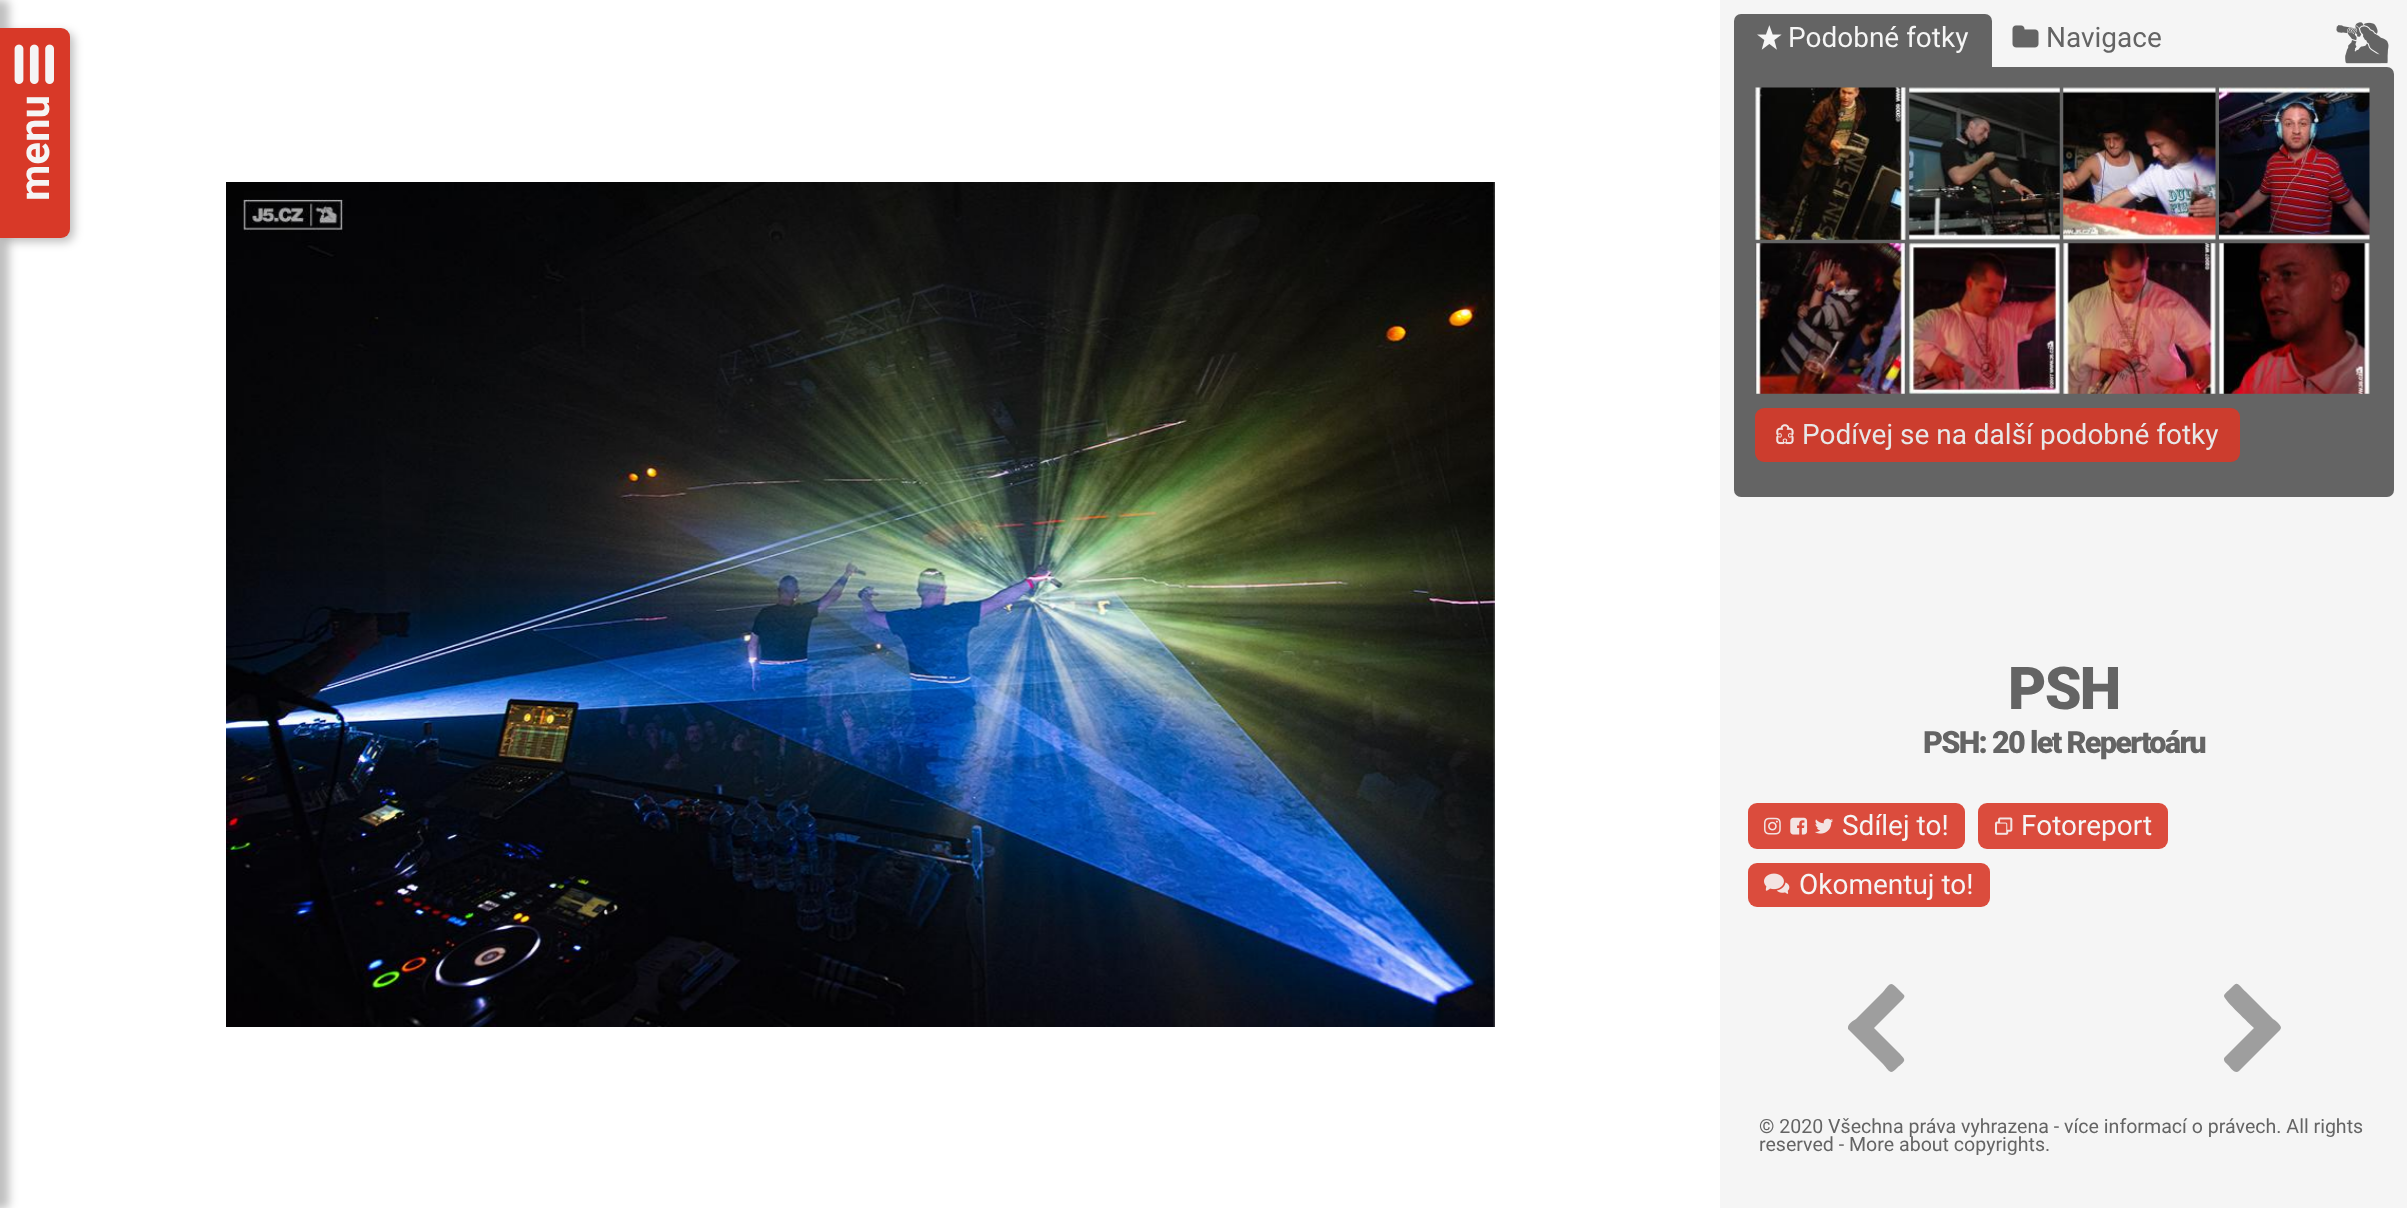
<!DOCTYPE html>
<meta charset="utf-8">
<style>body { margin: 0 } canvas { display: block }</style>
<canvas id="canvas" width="2407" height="1208"></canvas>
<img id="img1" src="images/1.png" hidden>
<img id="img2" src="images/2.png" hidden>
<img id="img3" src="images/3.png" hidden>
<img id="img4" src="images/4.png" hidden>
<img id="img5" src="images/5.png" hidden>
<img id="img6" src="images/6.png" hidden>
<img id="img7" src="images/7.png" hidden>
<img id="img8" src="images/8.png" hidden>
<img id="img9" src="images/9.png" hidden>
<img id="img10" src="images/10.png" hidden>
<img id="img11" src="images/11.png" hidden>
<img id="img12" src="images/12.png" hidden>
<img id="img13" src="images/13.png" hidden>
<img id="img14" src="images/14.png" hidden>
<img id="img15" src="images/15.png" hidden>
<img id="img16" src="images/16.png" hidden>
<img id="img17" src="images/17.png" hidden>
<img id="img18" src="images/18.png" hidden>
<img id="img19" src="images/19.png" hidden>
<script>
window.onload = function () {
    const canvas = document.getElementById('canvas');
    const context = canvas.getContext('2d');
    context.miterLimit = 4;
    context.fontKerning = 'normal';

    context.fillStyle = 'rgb(255, 255, 255)';
    context.fillRect(0, 0, 2407, 1208);
    context.fillStyle = 'rgba(0, 0, 0, 0.25)';
    context.filter = 'blur(5px)';
    context.beginPath();
    context.roundRect(-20, 0, 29, 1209, 5);
    context.fill();
    context.filter = 'none';
    context.filter = 'blur(5px)';
    context.beginPath();
    context.roundRect(4, 32, 70, 210, 9);
    context.fill();
    context.filter = 'none';
    context.fillStyle = 'rgb(216, 57, 40)';
    context.beginPath();
    context.roundRect(0, 28, 70, 210, [0, 9, 9, 0]);
    context.fill();
    context.drawImage(document.getElementById('img1'), 14, 44, 40, 40);
    context.drawImage(document.getElementById('img2'), 226, 182, 1269, 845);
    context.fillStyle = 'rgb(245, 245, 245)';
    context.fillRect(1720, 0, 687, 1208);
    context.fillStyle = 'rgb(100, 100, 100)';
    context.beginPath();
    context.roundRect(1734, 14, 258, 53, [7, 7, 0, 0]);
    context.fill();
    context.drawImage(document.getElementById('img3'), 1757, 25, 25, 25);
    context.drawImage(document.getElementById('img4'), 2012, 25, 27, 23);
    context.drawImage(document.getElementById('img5'), 2336, 22, 53, 42);
    context.beginPath();
    context.roundRect(1734, 67, 660, 430, [0, 7, 7, 7]);
    context.fill();
    context.drawImage(document.getElementById('img6'), 1755, 87, 151, 153);
    context.drawImage(document.getElementById('img7'), 1909, 87, 151, 153);
    context.drawImage(document.getElementById('img8'), 2063, 87, 153, 153);
    context.drawImage(document.getElementById('img9'), 2219, 87, 151, 153);
    context.drawImage(document.getElementById('img10'), 1755, 243, 151, 151);
    context.drawImage(document.getElementById('img11'), 1909, 243, 151, 151);
    context.drawImage(document.getElementById('img12'), 2063, 243, 153, 151);
    context.drawImage(document.getElementById('img13'), 2219, 243, 151, 151);
    context.fillStyle = 'rgb(204, 61, 46)';
    context.beginPath();
    context.roundRect(1755, 408, 485, 54, 9);
    context.fill();
    context.drawImage(document.getElementById('img14'), 1776, 424, 18, 21);
    context.fillStyle = 'rgb(219, 76, 61)';
    context.beginPath();
    context.roundRect(1748, 803, 217, 46, 9);
    context.fill();
    context.drawImage(document.getElementById('img15'), 1764, 817, 17, 18);
    context.drawImage(document.getElementById('img16'), 1790, 817, 18, 18);
    context.drawImage(document.getElementById('img17'), 1815, 818, 18, 16);
    context.beginPath();
    context.roundRect(1978, 803, 190, 46, 9);
    context.fill();
    context.drawImage(document.getElementById('img18'), 1995, 817, 18, 18);
    context.beginPath();
    context.roundRect(1748, 863, 242, 44, 9);
    context.fill();
    context.drawImage(document.getElementById('img19'), 1764, 873, 26, 21);
    context.fillStyle = 'rgb(158, 158, 158)';
    context.beginPath();
    context.moveTo(1903, 999);
    context.lineTo(1874, 1028);
    context.lineTo(1898, 1052);
    context.bezierCurveTo(1907, 1061, 1906, 1060, 1897, 1068);
    context.bezierCurveTo(1890, 1075, 1890, 1072, 1883, 1064);
    context.lineTo(1848, 1029);
    context.lineTo(1848, 1027);
    context.bezierCurveTo(1849, 1023, 1853, 1021, 1856, 1019);
    context.lineTo(1883, 992);
    context.bezierCurveTo(1890, 984, 1890, 981, 1897, 988);
    context.lineTo(1904, 995);
    context.bezierCurveTo(1905, 996, 1904, 998, 1903, 999);
    context.closePath();
    context.fill();
    context.beginPath();
    context.moveTo(2280, 1030);
    context.lineTo(2239, 1071);
    context.bezierCurveTo(2235, 1075, 2230, 1067, 2228, 1065);
    context.bezierCurveTo(2226, 1063, 2222, 1060, 2225, 1057);
    context.lineTo(2254, 1028);
    context.bezierCurveTo(2250, 1024, 2224, 1000, 2224, 996);
    context.bezierCurveTo(2224, 994, 2228, 991, 2230, 989);
    context.bezierCurveTo(2238, 981, 2236, 982, 2246, 992);
    context.lineTo(2273, 1019);
    context.bezierCurveTo(2273, 1019, 2281, 1024, 2281, 1028);
    context.closePath();
    context.fill();
    context.font = 'bold 42px Roboto';
    context.fillStyle = 'rgb(245, 245, 245)';
    context.save();
    context.translate(49, 201);
    context.rotate(-90 * Math.PI / 180);
    context.fillText('menu', 0, 0);
    context.restore();
    context.font = '28px Roboto';
    context.fillText('Podobné fotky', 1788, 47);
    context.fillStyle = 'rgb(100, 100, 100)';
    context.fillText('Navigace', 2046, 47);
    context.fillStyle = 'rgb(231, 231, 231)';
    context.fillText('Podívej se na další podobné fotky', 1802, 444);
    context.letterSpacing = '-1.75px';
    context.font = '900 59px Roboto';
    context.fillStyle = 'rgb(100, 100, 100)';
    context.fillText('PSH', 2008, 709);
    context.font = '900 30.75px Roboto';
    context.fillText('PSH: 20 let Repertoáru', 1923, 753);
    context.letterSpacing = '0px';
    context.font = '28px Roboto';
    context.fillStyle = 'rgb(245, 245, 245)';
    context.fillText('Sdílej to!', 1842, 835);
    context.fillText('Fotoreport', 2021, 835);
    context.fillText('Okomentuj to!', 1799, 894);
    context.font = '19.6px Roboto';
    context.fillStyle = 'rgb(100, 100, 100)';
    context.fillText('© 2020 Všechna práva vyhrazena -', 1759, 1133);
    context.fillText('více informací o právech. All rights', 2064, 1133);
    context.fillText('reserved - More about copyrights.', 1759, 1151);
};
</script>
